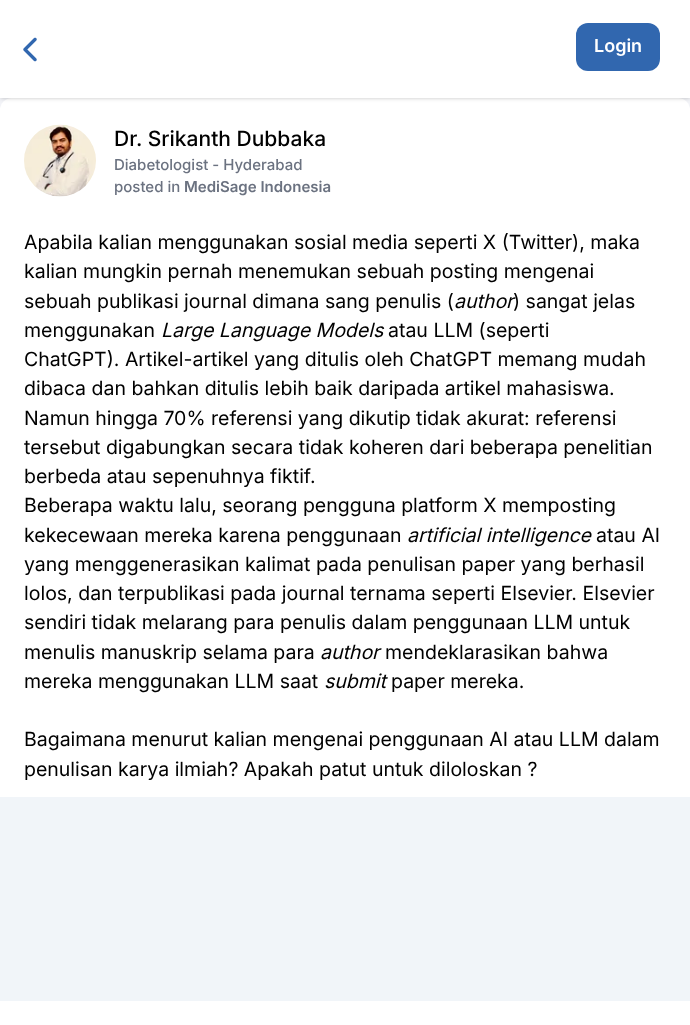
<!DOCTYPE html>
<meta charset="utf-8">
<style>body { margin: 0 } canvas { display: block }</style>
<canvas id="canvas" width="690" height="1025"></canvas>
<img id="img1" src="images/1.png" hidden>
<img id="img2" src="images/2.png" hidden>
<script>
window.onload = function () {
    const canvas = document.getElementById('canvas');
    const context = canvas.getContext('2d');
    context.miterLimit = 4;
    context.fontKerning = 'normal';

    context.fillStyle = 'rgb(242, 243, 247)';
    context.fillRect(0, 0, 690, 1025);
    context.fillStyle = 'rgb(255, 255, 255)';
    context.beginPath();
    context.roundRect(0, 98, 690, 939, 12);
    context.fill();
    context.fillStyle = 'rgba(0, 0, 0, 0.1)';
    context.filter = 'blur(1.5px)';
    context.beginPath();
    context.rect(2, 3, 687, 95);
    context.fill();
    context.filter = 'none';
    context.filter = 'blur(2px)';
    context.beginPath();
    context.rect(0, 2, 690, 97);
    context.fill();
    context.filter = 'none';
    context.fillStyle = 'rgb(255, 255, 255)';
    context.fillRect(0, 0, 690, 98);
    context.drawImage(document.getElementById('img1'), 23, 37, 14, 25);
    context.fillStyle = 'rgb(49, 103, 175)';
    context.beginPath();
    context.roundRect(576, 23, 84, 48, 12);
    context.fill();
    context.drawImage(document.getElementById('img2'), 24, 124, 72, 73);
    context.fillStyle = 'rgb(241, 245, 249)';
    context.fillRect(0, 797, 690, 204);
    context.font = '600 18px Inter';
    context.fillStyle = 'rgb(255, 255, 255)';
    context.fillText('Login', 594, 52);
    context.font = '500 21px Inter';
    context.fillStyle = 'rgb(0, 0, 0)';
    context.fillText('Dr. Srikanth Dubbaka', 114, 146);
    context.font = '500 15px Inter';
    context.fillStyle = 'rgb(107, 114, 128)';
    context.fillText('Diabetologist - Hyderabad', 114, 170);
    context.fillText('posted in', 114, 192);
    context.font = '600 15px Inter';
    context.fillText('MediSage Indonesia', 184, 192);
    context.font = '19.5px Inter';
    context.fillStyle = 'rgb(0, 0, 0)';
    context.fillText('Apabila kalian menggunakan sosial media seperti X (Twitter), maka', 24, 249);
    context.fillText('kalian mungkin pernah menemukan sebuah posting mengenai', 24, 278);
    context.fillText('sebuah publikasi journal dimana sang penulis (', 24, 308);
    context.font = 'italic 19.5px Inter';
    context.fillText('author', 454, 308);
    context.font = '19.5px Inter';
    context.fillText(') sangat jelas', 513, 308);
    context.fillText('menggunakan', 24, 337);
    context.font = 'italic 19.5px Inter';
    context.fillText('Large Language Models', 161, 337);
    context.font = '19.5px Inter';
    context.fillText('atau LLM (seperti', 388, 337);
    context.fillText('ChatGPT). Artikel-artikel yang ditulis oleh ChatGPT memang mudah', 24, 366);
    context.fillText('dibaca dan bahkan ditulis lebih baik daripada artikel mahasiswa.', 24, 395);
    context.fillText('Namun hingga 70% referensi yang dikutip tidak akurat: referensi', 24, 425);
    context.fillText('tersebut digabungkan secara tidak koheren dari beberapa penelitian', 24, 454);
    context.fillText('berbeda atau sepenuhnya fiktif.', 24, 483);
    context.fillText('Beberapa waktu lalu, seorang pengguna platform X memposting', 24, 512);
    context.fillText('kekecewaan mereka karena penggunaan', 24, 542);
    context.font = 'italic 19.5px Inter';
    context.fillText('artificial intelligence', 407, 542);
    context.font = '19.5px Inter';
    context.fillText('atau AI', 596, 542);
    context.fillText('yang menggenerasikan kalimat pada penulisan paper yang berhasil', 24, 571);
    context.fillText('lolos, dan terpublikasi pada journal ternama seperti Elsevier. Elsevier', 24, 600);
    context.fillText('sendiri tidak melarang para penulis dalam penggunaan LLM untuk', 24, 629);
    context.fillText('menulis manuskrip selama para', 24, 659);
    context.font = 'italic 19.5px Inter';
    context.fillText('author', 320, 659);
    context.font = '19.5px Inter';
    context.fillText('mendeklarasikan bahwa', 385, 659);
    context.fillText('mereka menggunakan LLM saat', 24, 688);
    context.font = 'italic 19.5px Inter';
    context.fillText('submit', 324, 688);
    context.font = '19.5px Inter';
    context.fillText('paper mereka.', 391, 688);
    context.fillText('Bagaimana menurut kalian mengenai penggunaan AI atau LLM dalam', 24, 746);
    context.fillText('penulisan karya ilmiah? Apakah patut untuk diloloskan ?', 24, 776);
};
</script>
